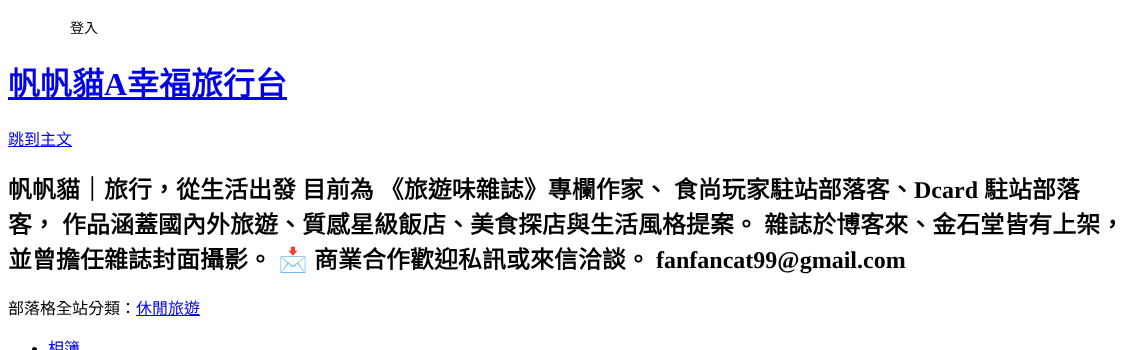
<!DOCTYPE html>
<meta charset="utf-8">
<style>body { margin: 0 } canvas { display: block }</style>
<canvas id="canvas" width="1132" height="350"></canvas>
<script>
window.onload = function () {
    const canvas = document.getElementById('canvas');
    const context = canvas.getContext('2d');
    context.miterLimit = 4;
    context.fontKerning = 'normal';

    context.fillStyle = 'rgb(255, 255, 255)';
    context.fillRect(0, 0, 1132, 350);
    context.fillStyle = 'rgb(0, 0, 238)';
    context.fillRect(8, 97, 279, 3);
    context.fillRect(8, 146, 64, 1);
    context.fillRect(136, 315, 64, 1);
    context.fillStyle = 'rgb(0, 0, 0)';
    context.beginPath();
    context.arc(34.5, 349.5, 2.5, 0, 2 * Math.PI);
    context.fill();
    context.font = '14px Noto Sans CJK TC';
    context.fillText('登入', 70, 33);
    context.font = 'bold 32px Noto Sans CJK TC';
    context.fillStyle = 'rgb(0, 0, 238)';
    context.fillText('帆帆貓', 8, 95);
    context.font = 'bold 32px Liberation Serif';
    context.fillText('A', 104, 95);
    context.font = 'bold 32px Noto Sans CJK TC';
    context.fillText('幸福旅行台', 127, 95);
    context.font = '16px Noto Sans CJK TC';
    context.fillText('跳到主文', 8, 145);
    context.wordSpacing = '0.5px';
    context.font = 'bold 24px Noto Sans CJK TC';
    context.fillStyle = 'rgb(0, 0, 0)';
    context.fillText('帆帆貓｜旅行，從生活出發 目前為 《旅遊味雜誌》專欄作家、 食尚玩家駐站部落客、', 8, 198);
    context.wordSpacing = '0px';
    context.font = 'bold 24px Liberation Serif';
    context.fillText('Dcard', 914, 198);
    context.font = 'bold 24px Noto Sans CJK TC';
    context.fillText('駐站部落', 984, 198);
    context.fillText('客，', 8, 233);
    context.wordSpacing = '1px';
    context.fillText('作品涵蓋國內外旅遊、質感星級飯店、美食探店與生活風格提案。 雜誌於博客來、金石堂皆有上架，', 62, 233);
    context.wordSpacing = '0px';
    context.fillText('並曾擔任雜誌封面攝影。', 8, 268);
    context.font = 'bold 24px Noto Color Emoji';
    context.fillText('📩', 278, 268);
    context.font = 'bold 24px Noto Sans CJK TC';
    context.fillText('商業合作歡迎私訊或來信洽談。', 314, 268);
    context.font = 'bold 24px Liberation Serif';
    context.fillText('fanfancat99@gmail.com', 656, 268);
    context.font = '16px Noto Sans CJK TC';
    context.fillText('部落格全站分類：', 8, 314);
    context.fillStyle = 'rgb(0, 0, 238)';
    context.fillText('休閒旅遊', 136, 314);
    context.fillText('相簿', 48, 354);
};
</script>
